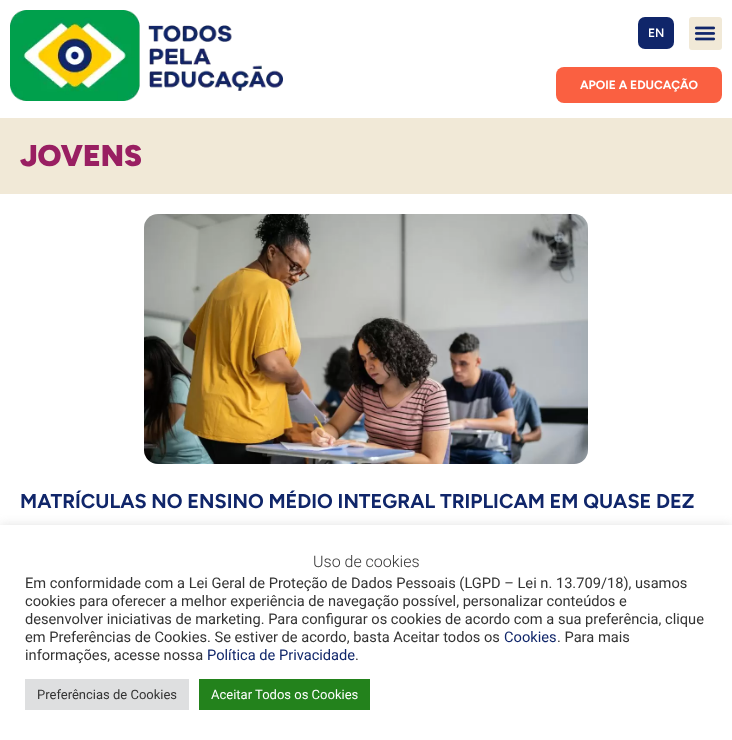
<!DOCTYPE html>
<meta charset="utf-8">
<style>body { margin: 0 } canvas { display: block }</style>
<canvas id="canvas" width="732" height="740"></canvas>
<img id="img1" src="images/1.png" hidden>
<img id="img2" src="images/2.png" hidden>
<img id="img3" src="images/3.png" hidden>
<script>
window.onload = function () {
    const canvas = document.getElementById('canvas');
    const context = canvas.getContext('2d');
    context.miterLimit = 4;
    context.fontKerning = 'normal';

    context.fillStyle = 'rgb(255, 255, 255)';
    context.fillRect(0, 0, 732, 740);
    context.drawImage(document.getElementById('img1'), 10, 10, 273, 91);
    context.fillStyle = 'rgb(16, 38, 106)';
    context.beginPath();
    context.roundRect(638, 17, 36, 32, 7);
    context.fill();
    context.fillStyle = 'rgb(241, 233, 215)';
    context.beginPath();
    context.roundRect(689, 17, 33, 33, 3);
    context.fill();
    context.drawImage(document.getElementById('img2'), 694, 26, 22, 15);
    context.fillStyle = 'rgb(250, 96, 65)';
    context.beginPath();
    context.roundRect(556, 67, 166, 36, 8);
    context.fill();
    context.fillStyle = 'rgb(241, 233, 215)';
    context.fillRect(0, 118, 732, 76);
    context.drawImage(document.getElementById('img3'), 144, 214, 444, 250);
    context.fillStyle = 'rgba(172, 171, 171, 0.3)';
    context.filter = 'blur(5px)';
    context.beginPath();
    context.rect(0, 524, 732, 215);
    context.fill();
    context.filter = 'none';
    context.fillStyle = 'rgb(255, 255, 255)';
    context.fillRect(0, 525, 732, 215);
    context.fillStyle = 'rgb(222, 223, 224)';
    context.fillRect(25, 679, 164, 31);
    context.fillStyle = 'rgb(35, 130, 28)';
    context.fillRect(199, 679, 171, 31);
    context.font = '600 12px Figtree';
    context.fillStyle = 'rgb(255, 255, 255)';
    context.fillText('EN', 648, 37);
    context.font = 'bold 12px Figtree';
    context.fillText('APOIE A EDUCAÇÃO', 580, 89);
    context.font = '900 30px Figtree';
    context.fillStyle = 'rgb(153, 31, 98)';
    context.fillText('JOVENS', 20, 166);
    context.font = 'bold 20px Figtree';
    context.fillStyle = 'rgb(16, 38, 106)';
    context.fillText('MATRÍCULAS NO ENSINO MÉDIO INTEGRAL TRIPLICAM EM QUASE DEZ', 20, 508);
    context.font = '300 16px Roboto';
    context.fillStyle = 'rgb(51, 51, 51)';
    context.fillText('Uso de cookies', 313, 567);
    context.font = '14.65px Roboto';
    context.fillText('Em conformidade com a Lei Geral de Proteção de Dados Pessoais (LGPD – Lei n. 13.709/18), usamos', 25, 588);
    context.fillText('cookies para oferecer a melhor experiência de navegação possível, personalizar conteúdos e', 25, 606);
    context.fillText('desenvolver iniciativas de marketing. Para configurar os cookies de acordo com a sua preferência, clique', 25, 624);
    context.fillText('em Preferências de Cookies. Se estiver de acordo, basta Aceitar todos os', 25, 642);
    context.fillStyle = 'rgb(16, 38, 106)';
    context.fillText('Cookies', 504, 642);
    context.fillStyle = 'rgb(51, 51, 51)';
    context.fillText('. Para mais', 557, 642);
    context.fillText('informações, acesse nossa', 25, 660);
    context.fillStyle = 'rgb(16, 38, 106)';
    context.fillText('Política de Privacidade', 207, 660);
    context.fillStyle = 'rgb(51, 51, 51)';
    context.fillText('.', 355, 660);
    context.font = '13px Roboto';
    context.fillText('Preferências de Cookies', 37, 699);
    context.fillStyle = 'rgb(255, 255, 255)';
    context.fillText('Aceitar Todos os Cookies', 211, 699);
};
</script>
